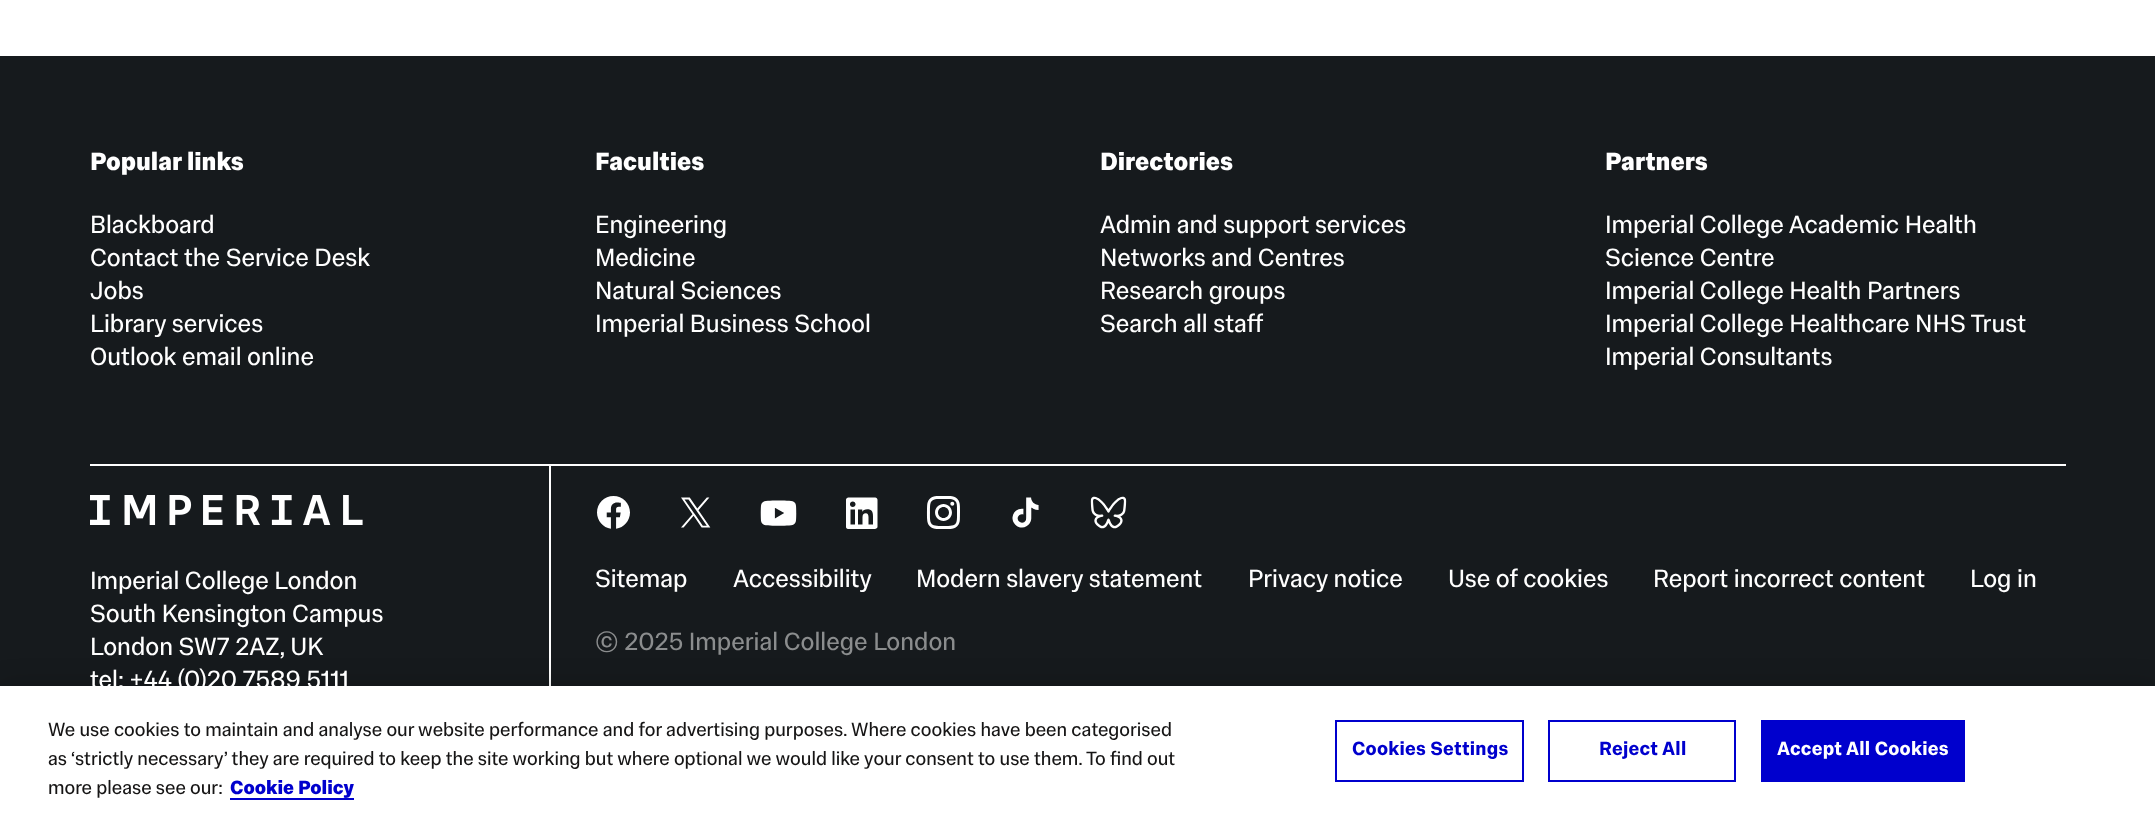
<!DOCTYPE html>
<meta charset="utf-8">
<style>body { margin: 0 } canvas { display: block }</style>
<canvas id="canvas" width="2155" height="818"></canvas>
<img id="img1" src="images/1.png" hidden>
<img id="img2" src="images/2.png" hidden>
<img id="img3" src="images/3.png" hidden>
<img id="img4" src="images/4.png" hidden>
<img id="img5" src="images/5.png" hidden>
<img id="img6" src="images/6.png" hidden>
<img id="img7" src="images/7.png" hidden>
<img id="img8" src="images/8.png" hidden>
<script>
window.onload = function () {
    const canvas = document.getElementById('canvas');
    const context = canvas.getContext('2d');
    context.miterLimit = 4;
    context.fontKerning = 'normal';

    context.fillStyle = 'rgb(255, 255, 255)';
    context.fillRect(0, 0, 2155, 818);
    context.fillStyle = 'rgb(22, 26, 29)';
    context.fillRect(0, 56, 2155, 630);
    context.fillStyle = 'rgb(255, 255, 255)';
    context.fillRect(90, 464, 1976, 2);
    context.fillRect(549, 465, 2, 221);
    context.drawImage(document.getElementById('img1'), 90, 495, 273, 30);
    context.drawImage(document.getElementById('img2'), 597, 496, 33, 33);
    context.drawImage(document.getElementById('img3'), 681, 497, 30, 31);
    context.drawImage(document.getElementById('img4'), 760, 500, 37, 26);
    context.drawImage(document.getElementById('img5'), 846, 497, 32, 32);
    context.drawImage(document.getElementById('img6'), 926, 496, 34, 33);
    context.drawImage(document.getElementById('img7'), 1012, 497, 27, 31);
    context.drawImage(document.getElementById('img8'), 1090, 496, 37, 33);
    context.fillStyle = 'rgba(0, 0, 0, 0.2)';
    context.filter = 'blur(13.5px)';
    context.beginPath();
    context.rect(0, 686, 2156, 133);
    context.fill();
    context.filter = 'none';
    context.fillStyle = 'rgb(255, 255, 255)';
    context.fillRect(0, 686, 2155, 132);
    context.fillStyle = 'rgb(0, 0, 205)';
    context.fillRect(230, 798, 124, 2);
    context.strokeStyle = 'rgb(0, 0, 205)';
    context.lineWidth = 2;
    context.strokeRect(1336, 721, 187, 60);
    context.strokeRect(1549, 721, 186, 60);
    context.fillRect(1761, 720, 204, 62);
    context.font = 'bold 25.4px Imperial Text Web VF';
    context.fillStyle = 'rgb(255, 255, 255)';
    context.fillText('Popular links', 90, 170);
    context.font = '25.4px Imperial Text Web VF';
    context.fillText('Blackboard', 90, 233);
    context.fillText('Contact the Service Desk', 90, 266);
    context.fillText('Jobs', 90, 299);
    context.fillText('Library services', 90, 332);
    context.fillText('Outlook email online', 90, 365);
    context.font = 'bold 25.4px Imperial Text Web VF';
    context.fillText('Faculties', 595, 170);
    context.font = '25.4px Imperial Text Web VF';
    context.fillText('Engineering', 595, 233);
    context.fillText('Medicine', 595, 266);
    context.fillText('Natural Sciences', 595, 299);
    context.fillText('Imperial Business School', 595, 332);
    context.font = 'bold 25.4px Imperial Text Web VF';
    context.fillText('Directories', 1100, 170);
    context.font = '25.4px Imperial Text Web VF';
    context.fillText('Admin and support services', 1100, 233);
    context.fillText('Networks and Centres', 1100, 266);
    context.fillText('Research groups', 1100, 299);
    context.fillText('Search all staff', 1100, 332);
    context.font = 'bold 25.4px Imperial Text Web VF';
    context.fillText('Partners', 1605, 170);
    context.font = '25.4px Imperial Text Web VF';
    context.fillText('Imperial College Academic Health', 1605, 233);
    context.fillText('Science Centre', 1605, 266);
    context.fillText('Imperial College Health Partners', 1605, 299);
    context.fillText('Imperial College Healthcare NHS Trust', 1605, 332);
    context.fillText('Imperial Consultants', 1605, 365);
    context.fillText('Imperial College London', 90, 589);
    context.fillText('South Kensington Campus', 90, 622);
    context.fillText('London SW7 2AZ, UK', 90, 655);
    context.fillText('tel: +44 (0)20 7589 5111', 90, 688);
    context.fillText('Sitemap', 595, 587);
    context.fillText('Accessibility', 733, 587);
    context.fillText('Modern slavery statement', 916, 587);
    context.fillText('Privacy notice', 1248, 587);
    context.fillText('Use of cookies', 1448, 587);
    context.fillText('Report incorrect content', 1653, 587);
    context.fillText('Log in', 1970, 587);
    context.fillStyle = 'rgb(139, 141, 142)';
    context.fillText('© 2025 Imperial College London', 595, 650);
    context.font = '19.5px Imperial Text Web VF';
    context.fillStyle = 'rgb(22, 21, 21)';
    context.fillText('We use cookies to maintain and analyse our website performance and for advertising purposes. Where cookies have been categorised', 48, 736);
    context.fillText('as ‘strictly necessary’ they are required to keep the site working but where optional we would like your consent to use them. To find out', 48, 765);
    context.fillText('more please see our:', 48, 794);
    context.font = 'bold 19.5px Imperial Text Web VF';
    context.fillStyle = 'rgb(0, 0, 205)';
    context.fillText('Cookie Policy', 230, 794);
    context.letterSpacing = '0.25px';
    context.font = '600 19.5px Imperial Text Web VF';
    context.fillText('Cookies Settings', 1352, 755);
    context.fillText('Reject All', 1599, 755);
    context.fillStyle = 'rgb(255, 255, 255)';
    context.fillText('Accept All Cookies', 1777, 755);
};
</script>
